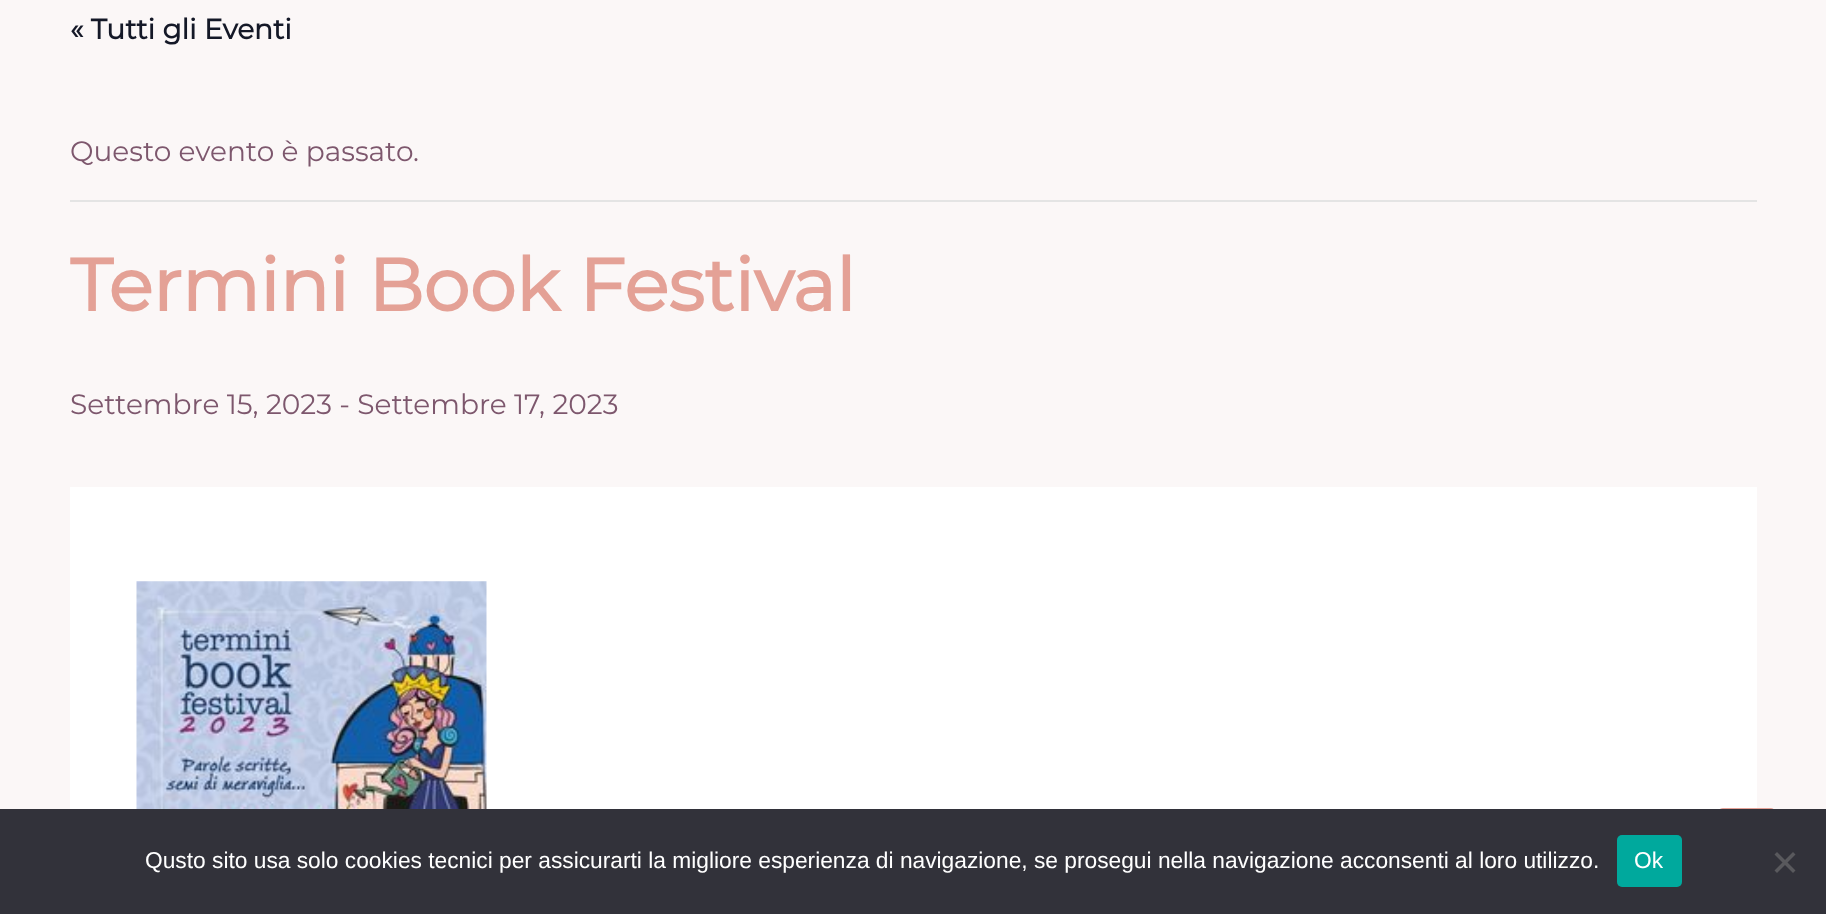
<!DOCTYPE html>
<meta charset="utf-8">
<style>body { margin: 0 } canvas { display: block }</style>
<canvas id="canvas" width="1826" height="914"></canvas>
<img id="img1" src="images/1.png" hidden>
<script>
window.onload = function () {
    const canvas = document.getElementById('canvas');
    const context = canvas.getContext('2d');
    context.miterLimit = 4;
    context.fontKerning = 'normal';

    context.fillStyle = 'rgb(251, 247, 247)';
    context.fillRect(0, 0, 1826, 914);
    context.fillStyle = 'rgb(228, 228, 228)';
    context.fillRect(70, 200, 1687, 2);
    context.fillStyle = 'rgb(255, 255, 255)';
    context.fillRect(70, 487, 1687, 322);
    context.drawImage(document.getElementById('img1'), 136, 581, 351, 228);
    context.fillStyle = 'rgb(228, 161, 150)';
    context.beginPath();
    context.moveTo(1771, 863);
    context.lineTo(1723, 863);
    context.bezierCurveTo(1721, 863, 1719, 861, 1719, 859);
    context.lineTo(1719, 811);
    context.bezierCurveTo(1719, 809, 1721, 808, 1723, 808);
    context.lineTo(1771, 808);
    context.bezierCurveTo(1773, 808, 1774, 809, 1774, 811);
    context.lineTo(1774, 859);
    context.bezierCurveTo(1774, 861, 1773, 863, 1771, 863);
    context.closePath();
    context.fill();
    context.fillStyle = 'rgb(50, 50, 58)';
    context.fillRect(0, 809, 1826, 105);
    context.fillStyle = 'rgb(0, 169, 157)';
    context.beginPath();
    context.roundRect(1617, 835, 65, 52, 5);
    context.fill();
    context.fillStyle = 'rgb(89, 89, 93)';
    context.beginPath();
    context.moveTo(1793, 852);
    context.lineTo(1795.5, 854.5);
    context.lineTo(1777, 873);
    context.lineTo(1774.5, 870.5);
    context.closePath();
    context.fill();
    context.beginPath();
    context.moveTo(1774.5, 854.5);
    context.lineTo(1777, 852);
    context.lineTo(1795.5, 870.5);
    context.lineTo(1793, 873);
    context.closePath();
    context.fill();
    context.font = 'bold 28px Montserrat';
    context.fillStyle = 'rgb(20, 24, 39)';
    context.fillText('« Tutti gli Eventi', 70, 39);
    context.font = '100 28px Montserrat';
    context.fillStyle = 'rgb(125, 87, 109)';
    context.fillText('Questo evento è passato.', 70, 161);
    context.font = 'bold 73.5px Montserrat';
    context.fillStyle = 'rgb(228, 161, 150)';
    context.fillText('Termini Book Festival', 70, 311);
    context.font = '100 28px Montserrat';
    context.fillStyle = 'rgb(125, 87, 109)';
    context.fillText('Settembre 15, 2023 - Settembre 17, 2023', 70, 414);
    context.font = '22.75px Liberation Sans';
    context.fillStyle = 'rgb(255, 255, 255)';
    context.fillText('Qusto sito usa solo cookies tecnici per assicurarti la migliore esperienza di navigazione, se prosegui nella navigazione acconsenti al loro utilizzo.', 145, 868);
    context.fillText('Ok', 1634, 868);
};
</script>
